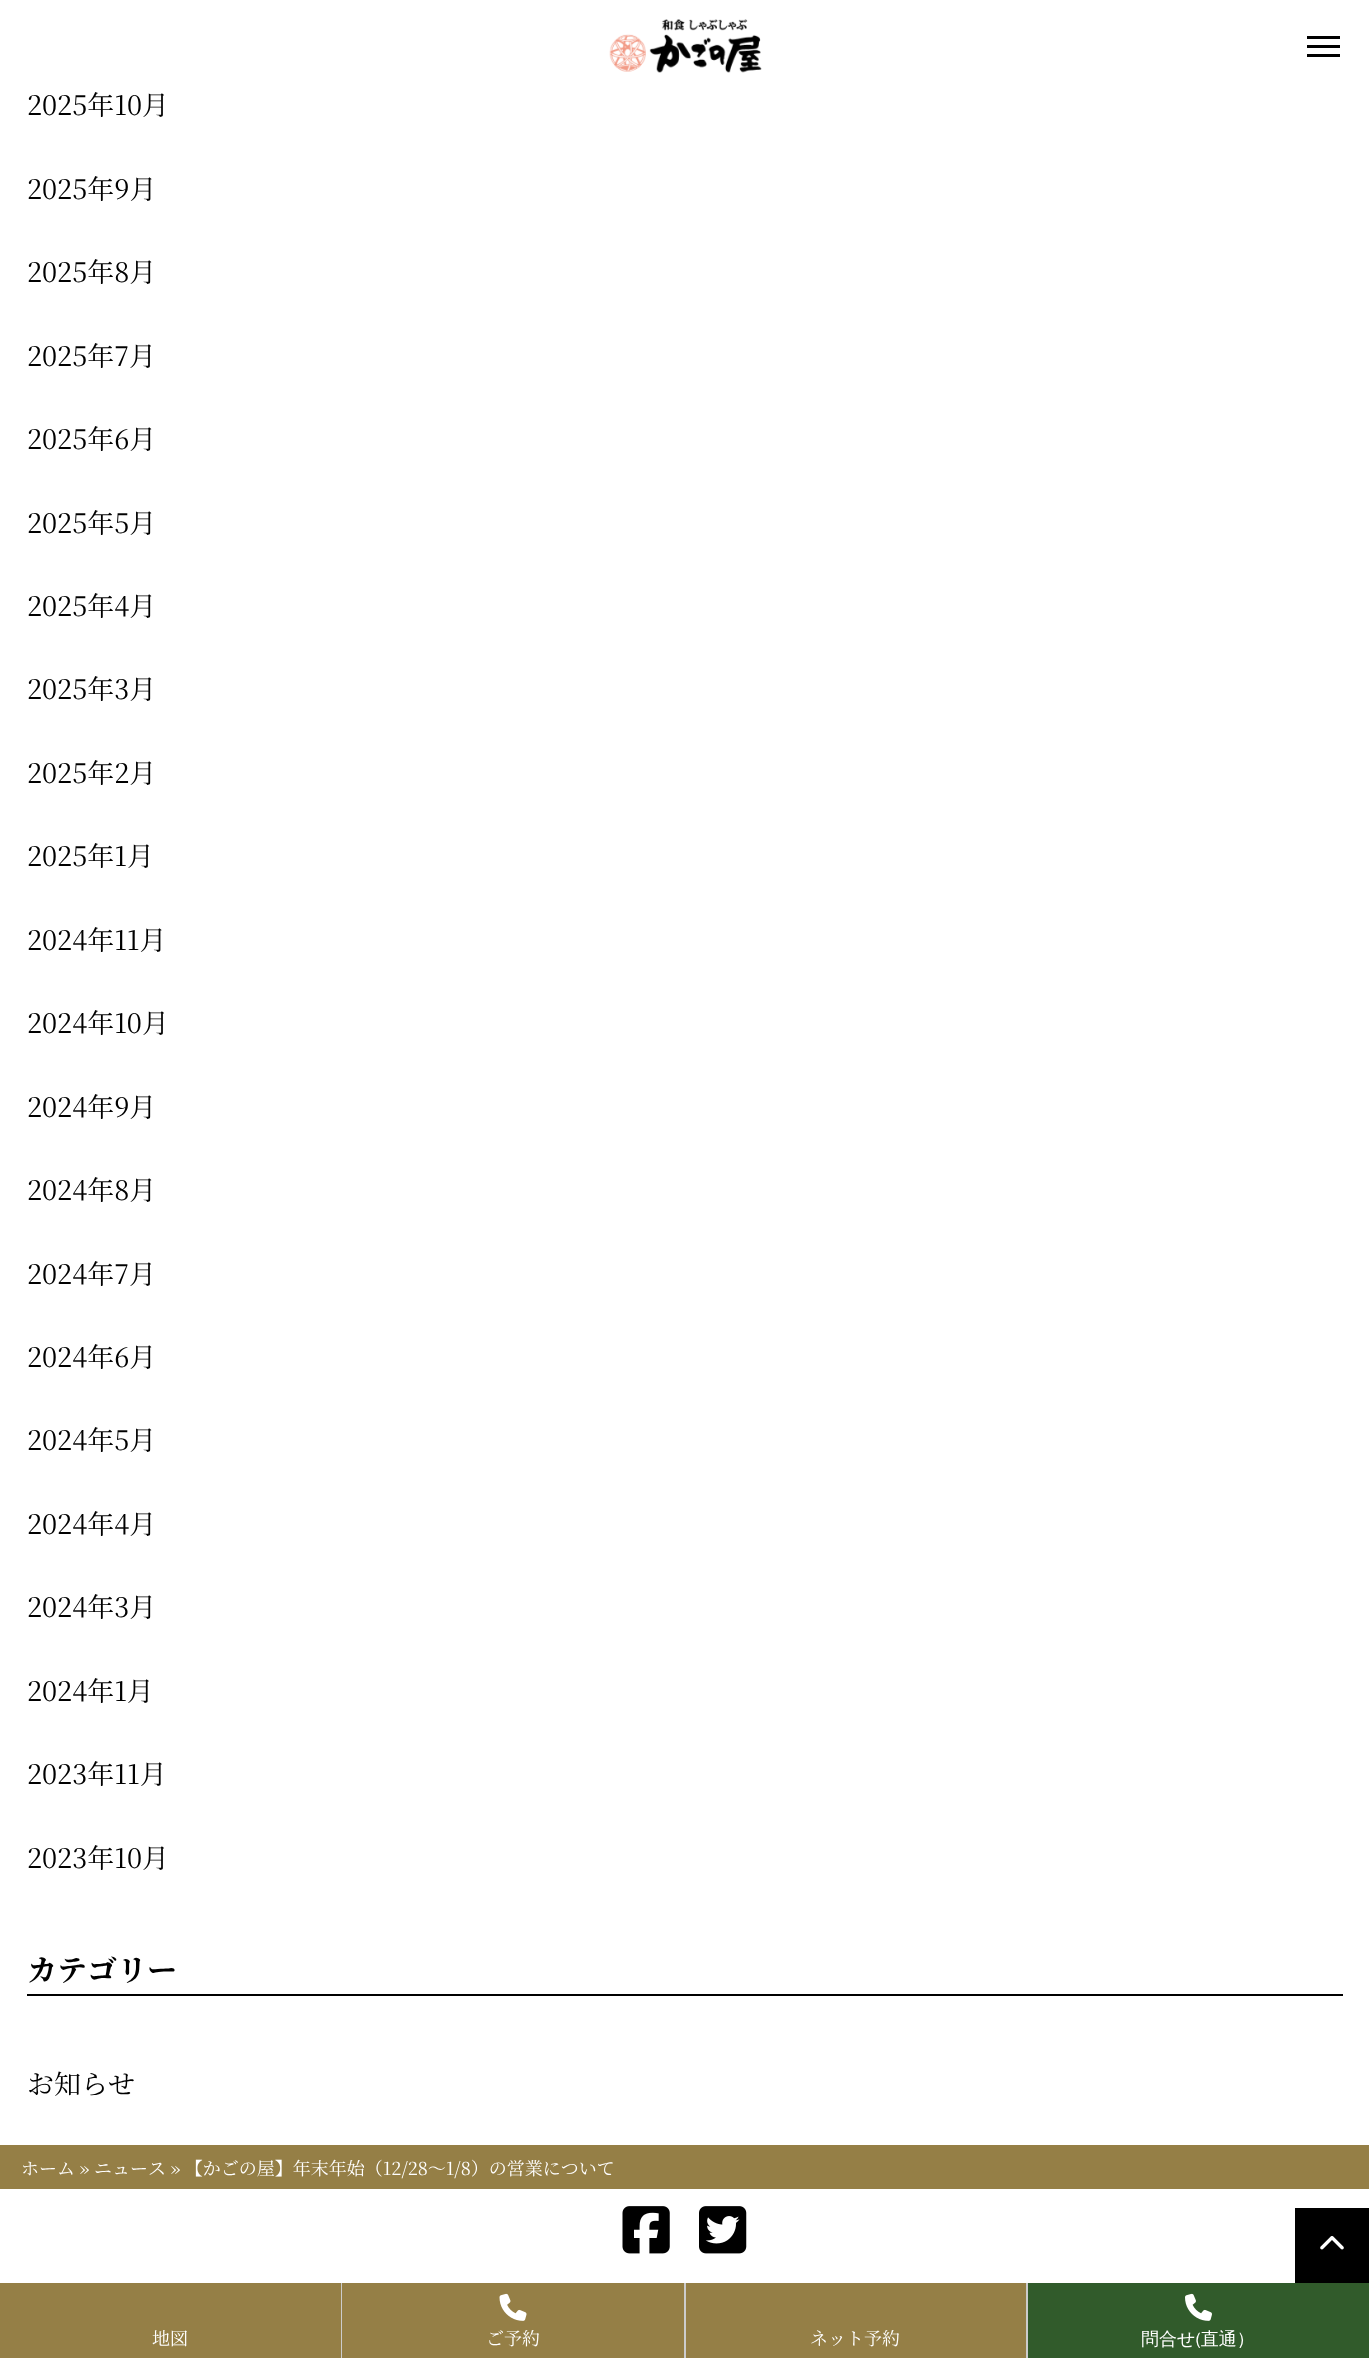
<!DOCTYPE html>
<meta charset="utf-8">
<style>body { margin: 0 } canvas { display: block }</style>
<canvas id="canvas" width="1369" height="2358"></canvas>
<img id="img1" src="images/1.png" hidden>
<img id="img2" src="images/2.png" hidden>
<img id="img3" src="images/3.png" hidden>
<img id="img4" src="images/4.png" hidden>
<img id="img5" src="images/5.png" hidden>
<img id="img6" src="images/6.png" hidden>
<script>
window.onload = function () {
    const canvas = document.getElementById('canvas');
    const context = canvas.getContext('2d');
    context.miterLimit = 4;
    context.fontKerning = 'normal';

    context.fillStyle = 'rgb(255, 255, 255)';
    context.fillRect(0, 0, 1369, 2358);
    context.drawImage(document.getElementById('img1'), 609, 19, 153, 54);
    context.fillStyle = 'rgb(0, 0, 0)';
    context.fillRect(1307, 36, 33, 3);
    context.fillRect(1307, 45, 33, 3);
    context.fillRect(1307, 54, 33, 3);
    context.fillRect(27, 1994, 1316, 2);
    context.fillStyle = 'rgb(149, 127, 70)';
    context.fillRect(0, 2145, 1369, 44);
    context.drawImage(document.getElementById('img2'), 622, 2206, 48, 48);
    context.drawImage(document.getElementById('img3'), 699, 2206, 48, 48);
    context.fillStyle = 'rgb(0, 0, 0)';
    context.fillRect(1295, 2208, 74, 75);
    context.drawImage(document.getElementById('img4'), 1320, 2236, 24, 14);
    context.fillStyle = 'rgb(149, 127, 70)';
    context.fillRect(0, 2283, 341, 75);
    context.fillStyle = 'rgb(204, 204, 204)';
    context.fillRect(341, 2283, 1, 75);
    context.fillStyle = 'rgb(149, 127, 70)';
    context.fillRect(342, 2283, 342, 75);
    context.fillStyle = 'rgb(204, 204, 204)';
    context.fillRect(684, 2283, 2, 75);
    context.drawImage(document.getElementById('img5'), 499, 2293, 28, 28);
    context.fillStyle = 'rgb(149, 127, 70)';
    context.fillRect(686, 2283, 340, 75);
    context.fillStyle = 'rgb(204, 204, 204)';
    context.fillRect(1026, 2283, 2, 75);
    context.fillStyle = 'rgb(49, 91, 43)';
    context.fillRect(1028, 2283, 341, 75);
    context.drawImage(document.getElementById('img6'), 1185, 2293, 27, 28);
    context.font = '27px Noto Serif JP';
    context.fillStyle = 'rgb(0, 0, 0)';
    context.fillText('2025年10月', 27, 115);
    context.fillText('2025年9月', 27, 199);
    context.fillText('2025年8月', 27, 282);
    context.fillText('2025年7月', 27, 366);
    context.fillText('2025年6月', 27, 449);
    context.fillText('2025年5月', 27, 533);
    context.fillText('2025年4月', 27, 616);
    context.fillText('2025年3月', 27, 699);
    context.fillText('2025年2月', 27, 783);
    context.fillText('2025年1月', 27, 866);
    context.fillText('2024年11月', 27, 950);
    context.fillText('2024年10月', 27, 1033);
    context.fillText('2024年9月', 27, 1117);
    context.fillText('2024年8月', 27, 1200);
    context.fillText('2024年7月', 27, 1284);
    context.fillText('2024年6月', 27, 1367);
    context.fillText('2024年5月', 27, 1450);
    context.fillText('2024年4月', 27, 1534);
    context.fillText('2024年3月', 27, 1617);
    context.fillText('2024年1月', 27, 1701);
    context.fillText('2023年11月', 27, 1784);
    context.fillText('2023年10月', 27, 1868);
    context.font = 'bold 30px Noto Serif JP';
    context.fillText('カテゴリー', 27, 1981);
    context.font = '27px Noto Serif JP';
    context.fillText('お知らせ', 27, 2094);
    context.font = '18px Noto Serif JP';
    context.fillStyle = 'rgb(255, 255, 255)';
    context.fillText('ホーム » ニュース » 【かごの屋】年末年始（12/28～1/8）の営業について', 21, 2175);
    context.fillText('地図', 152, 2345);
    context.fillText('ご予約', 486, 2345);
    context.fillText('ネット予約', 810, 2345);
    context.font = '500 18px WenQuanYi Zen Hei';
    context.fillText('問合せ(直通）', 1141, 2345);
};
</script>
